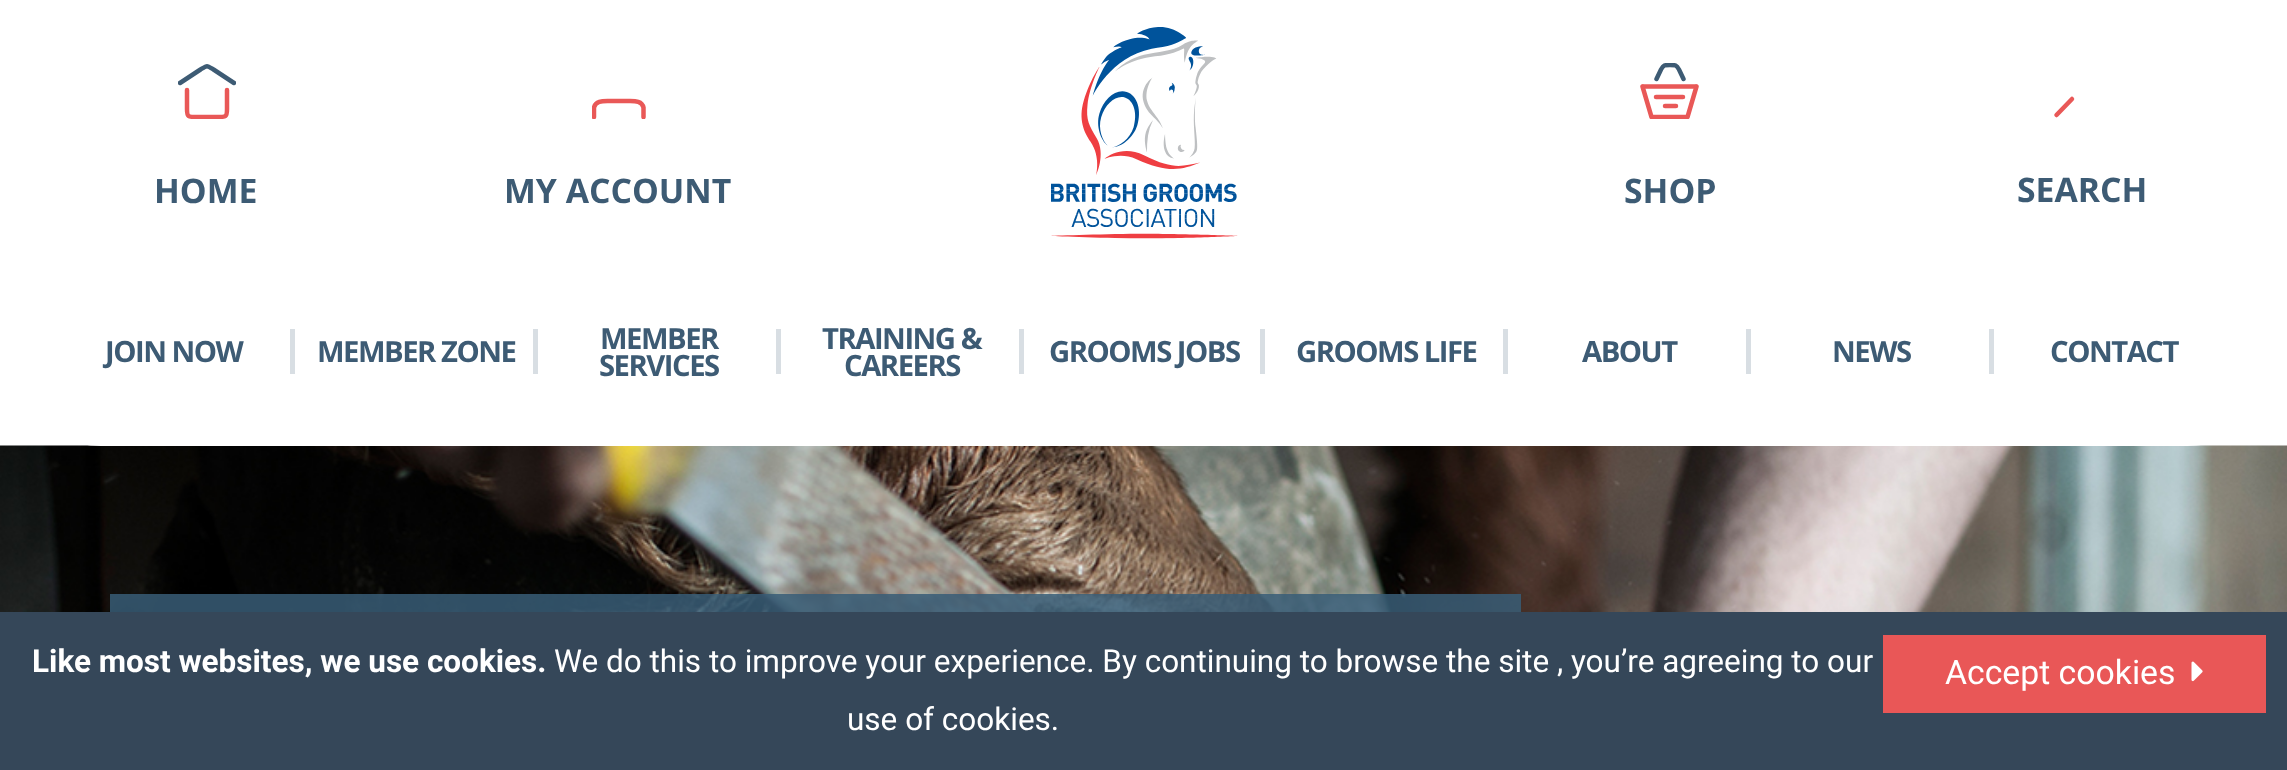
<!DOCTYPE html>
<meta charset="utf-8">
<style>body { margin: 0 } canvas { display: block }</style>
<canvas id="canvas" width="2287" height="770"></canvas>
<img id="img1" src="images/2.png" hidden>
<img id="img2" src="images/1.png" hidden>
<img id="img3" src="images/3.png" hidden>
<script>
window.onload = function () {
    const canvas = document.getElementById('canvas');
    const context = canvas.getContext('2d');
    context.miterLimit = 4;
    context.fontKerning = 'normal';

    context.fillStyle = 'rgb(255, 255, 255)';
    context.fillRect(0, 0, 2287, 770);
    context.drawImage(document.getElementById('img1'), 0, 445, 2287, 167);
    context.beginPath();
    context.moveTo(0, 0);
    context.lineTo(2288, 0);
    context.lineTo(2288, 345);
    context.bezierCurveTo(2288, 401, 2243, 446, 2187, 446);
    context.lineTo(101, 446);
    context.bezierCurveTo(45, 446, 0, 401, 0, 345);
    context.closePath();
    context.fill();
    context.save();
    context.beginPath();
    context.rect(178, 63, 58, 56);
    context.clip();
    context.beginPath();
    context.moveTo(180, 83);
    context.lineTo(200.5, 69.5);
    context.bezierCurveTo(207.5, 65, 206.5, 65, 213.5, 69.5);
    context.lineTo(234, 83);
    context.strokeStyle = 'rgb(61, 91, 116)';
    context.lineWidth = 4.5;
    context.lineCap = 'round';
    context.lineJoin = 'round';
    context.stroke();
    context.beginPath();
    context.moveTo(227, 90);
    context.lineTo(227, 109);
    context.bezierCurveTo(227, 117, 226, 117, 217.5, 117);
    context.lineTo(196.5, 117);
    context.bezierCurveTo(188, 117, 187, 117, 187, 109);
    context.lineTo(187, 90);
    context.strokeStyle = 'rgb(233, 88, 87)';
    context.lineJoin = 'miter';
    context.stroke();
    context.restore();
    context.save();
    context.beginPath();
    context.rect(592, 63, 54, 56);
    context.clip();
    context.beginPath();
    context.moveTo(643.5, 117);
    context.lineTo(643.5, 107.5);
    context.bezierCurveTo(642, 101, 635.5, 101, 630, 101);
    context.lineTo(607.5, 101);
    context.bezierCurveTo(602, 101, 595.5, 101, 594, 107.5);
    context.lineTo(594, 117);
    context.strokeStyle = 'rgb(233, 88, 87)';
    context.lineWidth = 4.5;
    context.lineCap = 'round';
    context.stroke();
    context.restore();
    context.drawImage(document.getElementById('img2'), 1051, 27, 187, 212);
    context.save();
    context.beginPath();
    context.rect(1640, 63, 59, 56);
    context.clip();
    context.beginPath();
    context.moveTo(1683.5, 79);
    context.lineTo(1679, 69.5);
    context.bezierCurveTo(1676.5, 65, 1675.5, 65, 1670, 65);
    context.bezierCurveTo(1664.5, 65, 1663.5, 65, 1661, 69.5);
    context.lineTo(1656.5, 79);
    context.strokeStyle = 'rgb(61, 91, 116)';
    context.lineWidth = 4.5;
    context.lineCap = 'round';
    context.stroke();
    context.restore();
    context.beginPath();
    context.moveTo(1643.5, 86.5);
    context.lineTo(1695.5, 86.5);
    context.moveTo(1656, 97);
    context.lineTo(1683, 97);
    context.moveTo(1665, 106);
    context.lineTo(1676, 106);
    context.strokeStyle = 'rgb(233, 88, 87)';
    context.lineWidth = 4.5;
    context.lineCap = 'round';
    context.stroke();
    context.save();
    context.beginPath();
    context.rect(1640, 63, 59, 56);
    context.clip();
    context.beginPath();
    context.moveTo(1642.5, 86.5);
    context.lineTo(1651.5, 117);
    context.lineTo(1687.5, 117);
    context.lineTo(1696.5, 86.5);
    context.lineJoin = 'round';
    context.stroke();
    context.restore();
    context.beginPath();
    context.moveTo(2056.5, 115);
    context.lineTo(2072, 99);
    context.stroke();
    context.fillStyle = 'rgb(216, 222, 227)';
    context.fillRect(290, 329, 5, 45);
    context.fillRect(533, 329, 5, 45);
    context.fillRect(776, 329, 5, 45);
    context.fillRect(1019, 329, 5, 45);
    context.fillRect(1260, 329, 5, 45);
    context.fillRect(1503, 329, 5, 45);
    context.fillRect(1746, 329, 5, 45);
    context.fillRect(1989, 329, 5, 45);
    context.fillStyle = 'rgba(56, 93, 119, 0.85)';
    context.fillRect(110, 594, 1411, 18);
    context.fillStyle = 'rgb(53, 71, 89)';
    context.fillRect(0, 612, 2287, 158);
    context.fillStyle = 'rgb(233, 87, 87)';
    context.fillRect(1883, 635, 383, 78);
    context.drawImage(document.getElementById('img3'), 2191, 661, 12, 21);
    context.font = 'bold 33.75px Open Sans';
    context.fillStyle = 'rgb(61, 91, 116)';
    context.fillText('HOME', 154, 203);
    context.fillText('MY ACCOUNT', 504, 203);
    context.fillText('SHOP', 1624, 203);
    context.fillText('SEARCH', 2017, 202);
    context.letterSpacing = '-1.5px';
    context.font = 'bold 29.25px Open Sans';
    context.fillText('JOIN NOW', 105, 362);
    context.fillText('MEMBER ZONE', 317, 362);
    context.fillText('MEMBER', 600, 349);
    context.fillText('SERVICES', 599, 376);
    context.fillText('TRAINING &', 822, 349);
    context.fillText('CAREERS', 844, 376);
    context.fillText('GROOMS JOBS', 1049, 362);
    context.fillText('GROOMS LIFE', 1296, 362);
    context.fillText('ABOUT', 1582, 362);
    context.fillText('NEWS', 1832, 362);
    context.fillText('CONTACT', 2050, 362);
    context.letterSpacing = '0px';
    context.font = 'bold 31.5px Roboto';
    context.fillStyle = 'rgb(255, 255, 255)';
    context.fillText('Like most websites, we use cookies.', 32, 672);
    context.font = '31.5px Roboto';
    context.fillText('We do this to improve your experience. By continuing to browse the site , you’re agreeing to our', 554, 672);
    context.fillText('use of cookies.', 847, 730);
    context.font = '33.75px Roboto';
    context.fillText('Accept cookies', 1945, 684);
};
</script>
